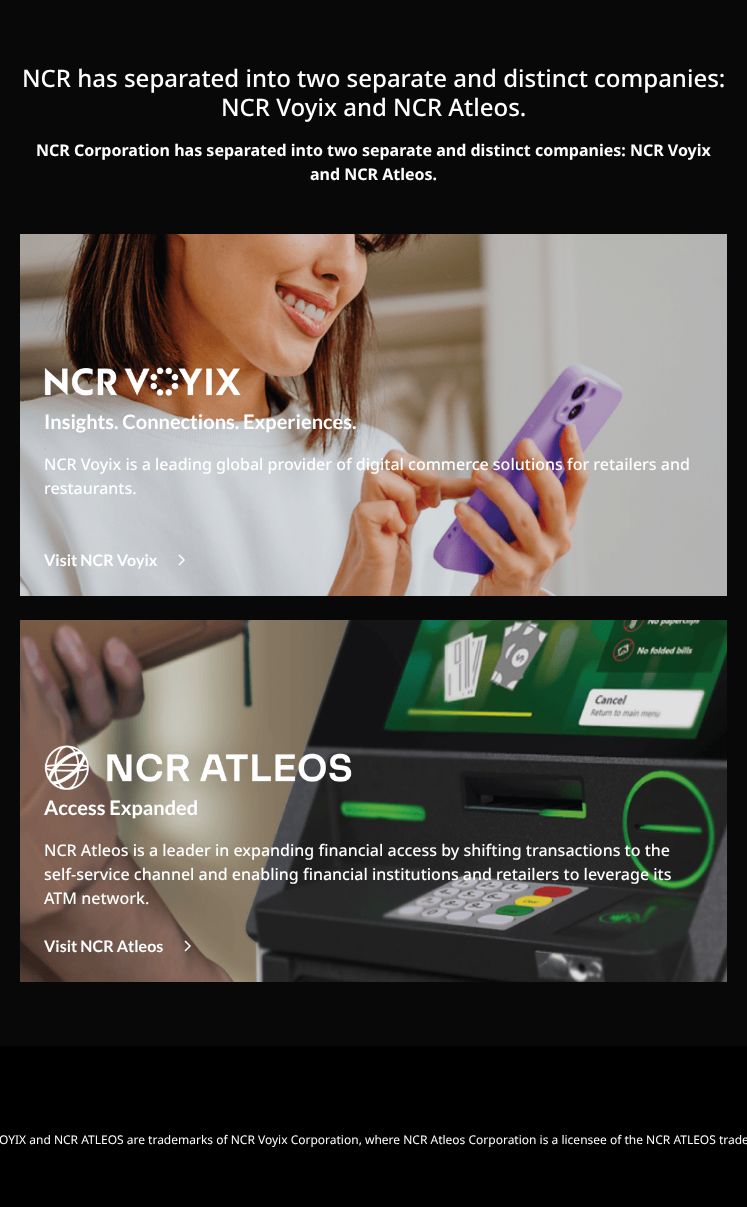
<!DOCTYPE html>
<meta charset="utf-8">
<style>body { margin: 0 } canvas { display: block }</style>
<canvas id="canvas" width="747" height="1207"></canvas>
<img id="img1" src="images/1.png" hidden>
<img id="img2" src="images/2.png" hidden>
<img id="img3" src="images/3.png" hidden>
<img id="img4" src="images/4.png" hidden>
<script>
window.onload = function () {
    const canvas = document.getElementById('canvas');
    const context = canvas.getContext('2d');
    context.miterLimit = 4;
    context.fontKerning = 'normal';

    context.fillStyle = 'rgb(0, 0, 0)';
    context.fillRect(0, 0, 747, 1207);
    context.fillStyle = 'rgb(9, 8, 8)';
    context.fillRect(0, 0, 747, 1046);
    context.drawImage(document.getElementById('img1'), 20, 234, 707, 362);
    context.drawImage(document.getElementById('img2'), 44, 367, 197, 29);
    context.beginPath();
    context.moveTo(179, 555);
    context.lineTo(184, 560);
    context.lineTo(179, 565);
    context.strokeStyle = 'rgb(255, 255, 255)';
    context.lineWidth = 1.5;
    context.stroke();
    context.drawImage(document.getElementById('img3'), 20, 620, 707, 362);
    context.drawImage(document.getElementById('img4'), 44, 745, 308, 46);
    context.beginPath();
    context.moveTo(185, 941);
    context.lineTo(190, 946);
    context.lineTo(185, 951);
    context.stroke();
    context.font = '500 24px Noto Sans';
    context.fillStyle = 'rgb(255, 255, 255)';
    context.fillText('NCR has separated into two separate and distinct companies:', 22, 87);
    context.fillText('NCR Voyix and NCR Atleos.', 221, 116);
    context.font = 'bold 16px Noto Sans';
    context.fillText('NCR Corporation has separated into two separate and distinct companies: NCR Voyix', 36, 156);
    context.fillText('and NCR Atleos.', 310, 180);
    context.font = 'bold 20px Lato';
    context.fillText('Insights. Connections. Experiences.', 44, 429);
    context.font = '500 16px Noto Sans';
    context.fillText('NCR Voyix is a leading global provider of digital commerce solutions for retailers and', 44, 470);
    context.fillText('restaurants.', 44, 494);
    context.font = 'bold 16px Lato';
    context.fillText('Visit NCR Voyix', 44, 566);
    context.font = 'bold 20px Lato';
    context.fillText('Access Expanded', 44, 815);
    context.font = '500 16px Noto Sans';
    context.fillText('NCR Atleos is a leader in expanding financial access by shifting transactions to the', 44, 856);
    context.fillText('self-service channel and enabling financial institutions and retailers to leverage its', 44, 880);
    context.fillText('ATM network.', 44, 904);
    context.font = 'bold 16px Lato';
    context.fillText('Visit NCR Atleos', 44, 952);
    context.font = '12px Noto Sans';
    context.fillText('OYIX and NCR ATLEOS are trademarks of NCR Voyix Corporation, where NCR Atleos Corporation is a licensee of the NCR ATLEOS trade', -1, 1144);
};
</script>
